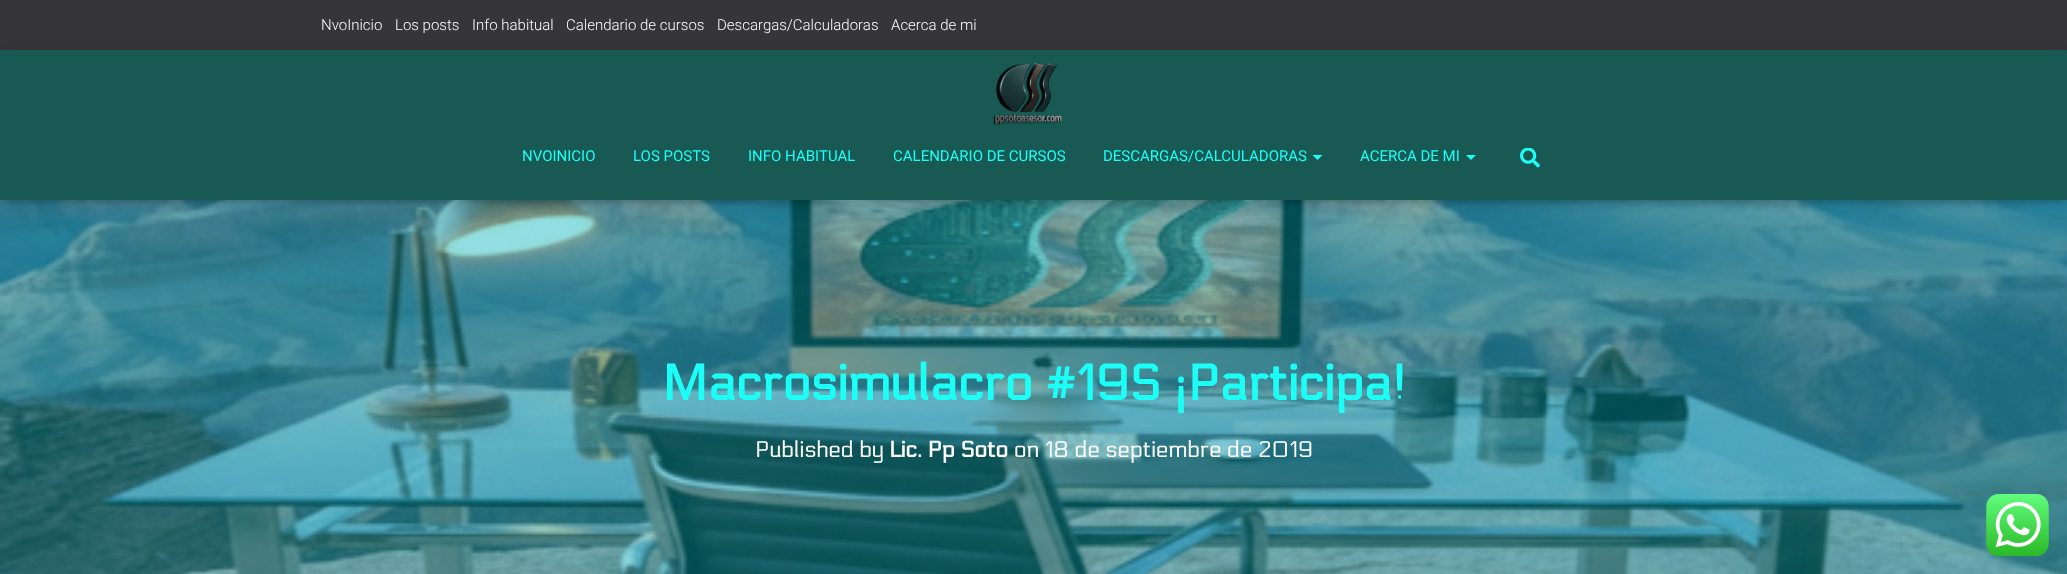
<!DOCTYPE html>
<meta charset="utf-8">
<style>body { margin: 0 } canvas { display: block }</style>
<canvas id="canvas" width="2067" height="574"></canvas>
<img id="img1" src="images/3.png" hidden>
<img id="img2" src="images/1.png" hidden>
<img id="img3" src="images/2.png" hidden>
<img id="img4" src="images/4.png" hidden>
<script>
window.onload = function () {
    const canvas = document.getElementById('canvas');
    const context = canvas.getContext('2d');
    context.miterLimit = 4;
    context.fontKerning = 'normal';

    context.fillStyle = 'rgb(54, 53, 55)';
    context.fillRect(0, 0, 2067, 574);
    context.drawImage(document.getElementById('img1'), 0, 200, 2067, 374);
    context.fillStyle = 'rgba(0, 0, 0, 0.1)';
    context.filter = 'blur(3px)';
    context.beginPath();
    context.rect(3, 58, 2062, 145);
    context.fill();
    context.filter = 'none';
    context.fillStyle = 'rgba(0, 0, 0, 0.12)';
    context.filter = 'blur(6px)';
    context.beginPath();
    context.rect(0, 51, 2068, 150);
    context.fill();
    context.filter = 'none';
    context.fillStyle = 'rgba(0, 0, 0, 0.42)';
    context.filter = 'blur(6px)';
    context.beginPath();
    context.rect(8, 59, 2052, 135);
    context.fill();
    context.filter = 'none';
    context.fillStyle = 'rgb(24, 89, 83)';
    context.fillRect(0, 50, 2067, 150);
    context.drawImage(document.getElementById('img2'), 993, 63, 69, 62);
    context.fillStyle = 'rgb(28, 255, 247)';
    context.beginPath();
    context.moveTo(1312.5, 155);
    context.lineTo(1322.5, 155);
    context.lineTo(1317.5, 160);
    context.closePath();
    context.fill();
    context.beginPath();
    context.moveTo(1466, 155);
    context.lineTo(1476, 155);
    context.lineTo(1471, 160);
    context.closePath();
    context.fill();
    context.drawImage(document.getElementById('img3'), 1520, 148, 20, 20);
    context.drawImage(document.getElementById('img4'), 1986, 494, 63, 62);
    context.font = '300 15px Roboto';
    context.fillStyle = 'rgb(255, 255, 255)';
    context.fillText('NvoInicio', 321, 30);
    context.fillText('Los posts', 395, 30);
    context.fillText('Info habitual', 472, 30);
    context.fillText('Calendario de cursos', 566, 30);
    context.fillText('Descargas/Calculadoras', 717, 30);
    context.fillText('Acerca de mi', 891, 30);
    context.font = '15px Roboto';
    context.fillStyle = 'rgb(28, 255, 247)';
    context.fillText('NVOINICIO', 522, 161);
    context.fillText('LOS POSTS', 633, 161);
    context.fillText('INFO HABITUAL', 748, 161);
    context.fillText('CALENDARIO DE CURSOS', 893, 161);
    context.fillText('DESCARGAS/CALCULADORAS', 1103, 161);
    context.fillText('ACERCA DE MI', 1360, 161);
    context.font = 'bold 50px Electrolize';
    context.fillText('Macrosimulacro #19S ¡Participa!', 662, 400);
    context.font = '22.5px Electrolize';
    context.fillStyle = 'rgb(255, 255, 255)';
    context.fillText('Published by', 755, 457);
    context.font = 'bold 22.5px Electrolize';
    context.fillText('Lic. Pp Soto', 889, 457);
    context.font = '22.5px Electrolize';
    context.fillText('on 18 de septiembre de 2019', 1014, 457);
};
</script>
